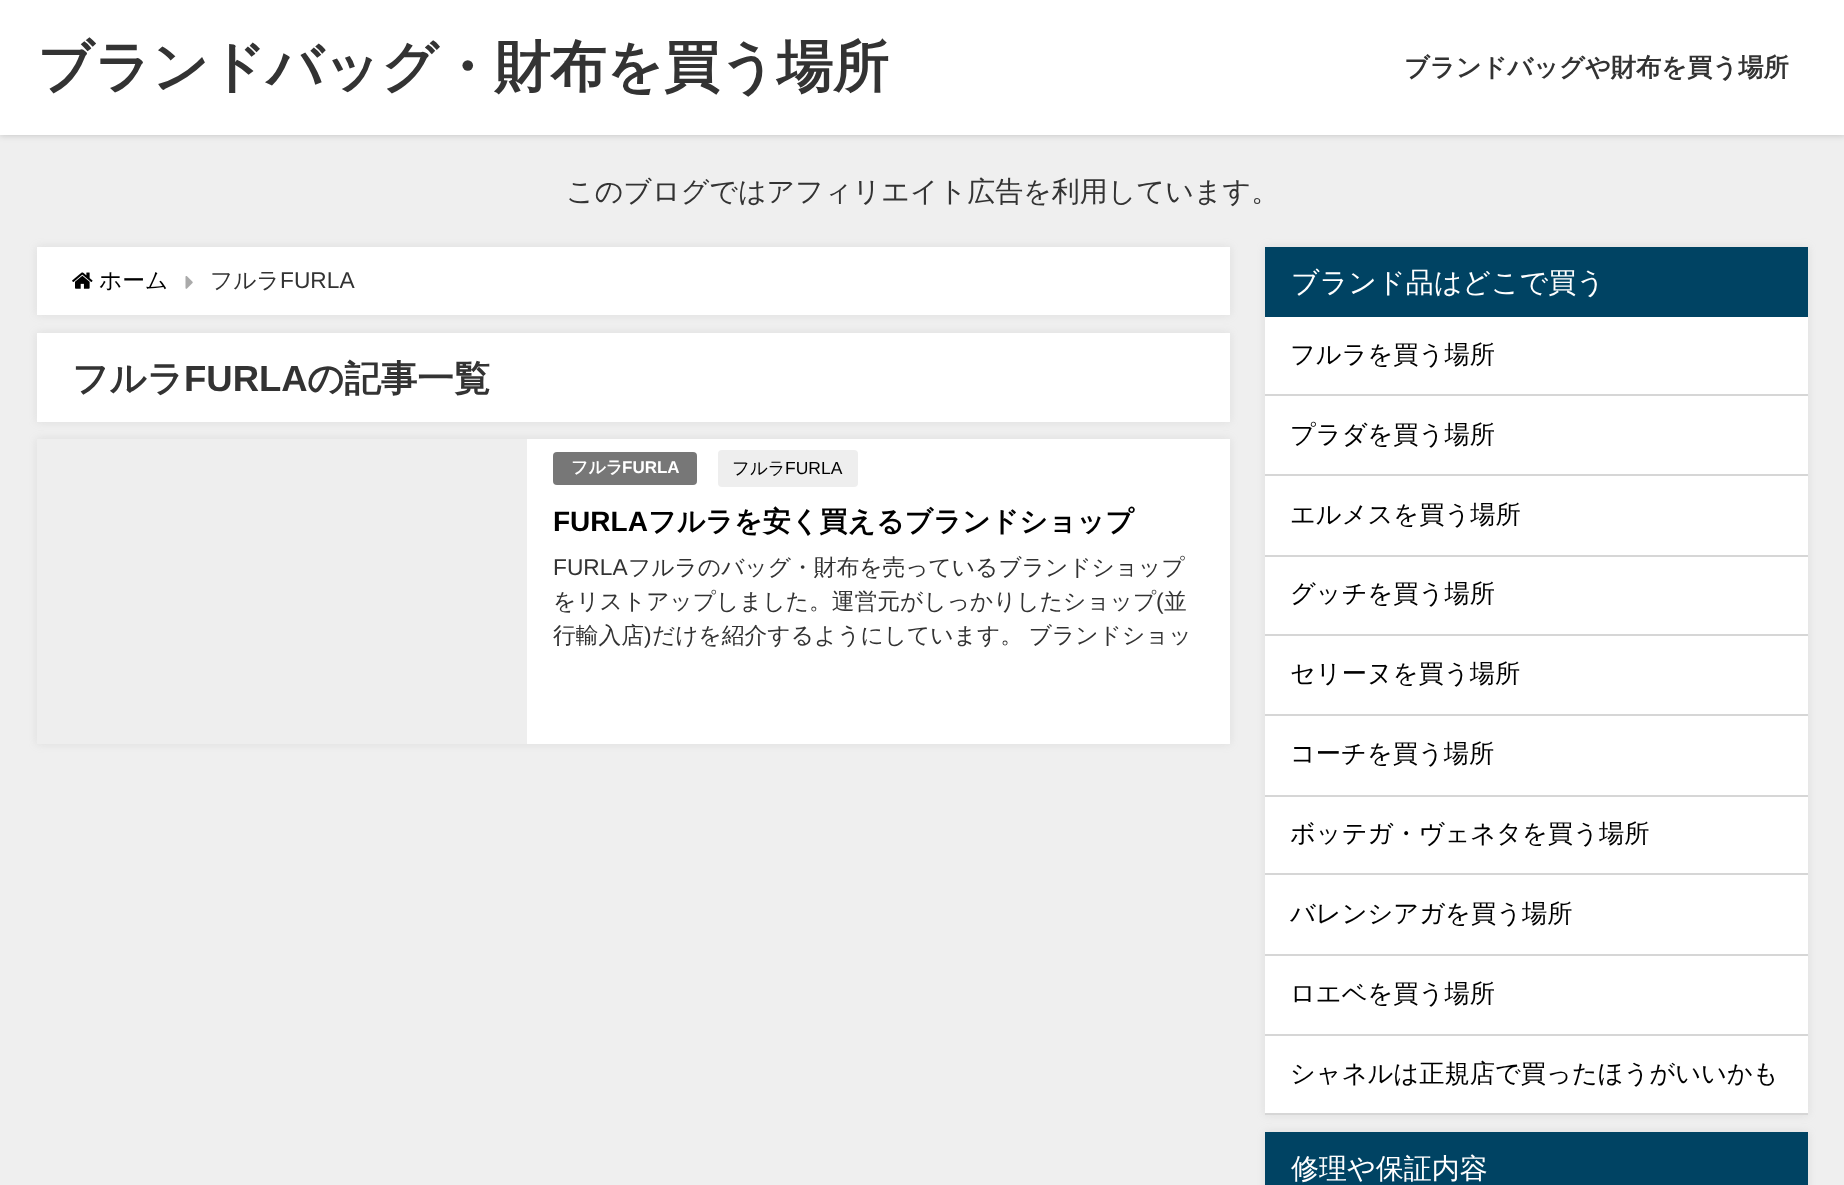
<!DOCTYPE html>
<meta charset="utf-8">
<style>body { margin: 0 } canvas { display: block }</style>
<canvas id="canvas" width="1844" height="1185"></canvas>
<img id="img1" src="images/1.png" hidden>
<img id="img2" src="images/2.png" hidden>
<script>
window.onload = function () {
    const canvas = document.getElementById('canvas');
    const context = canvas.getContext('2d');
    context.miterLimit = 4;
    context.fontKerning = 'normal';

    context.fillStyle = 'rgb(239, 239, 239)';
    context.fillRect(0, 0, 1844, 1185);
    context.fillStyle = 'rgba(0, 0, 0, 0.2)';
    context.filter = 'blur(3.5px)';
    context.beginPath();
    context.rect(0, 0, 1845, 135);
    context.fill();
    context.filter = 'none';
    context.fillStyle = 'rgb(255, 255, 255)';
    context.fillRect(0, 0, 1844, 135);
    context.fillStyle = 'rgba(150, 150, 150, 0.2)';
    context.filter = 'blur(4.5px)';
    context.beginPath();
    context.rect(37, 247, 1193, 68);
    context.fill();
    context.filter = 'none';
    context.fillStyle = 'rgb(255, 255, 255)';
    context.fillRect(37, 247, 1193, 68);
    context.drawImage(document.getElementById('img1'), 72, 272, 21, 17);
    context.drawImage(document.getElementById('img2'), 185, 276, 8, 13);
    context.fillStyle = 'rgba(150, 150, 150, 0.2)';
    context.filter = 'blur(4.5px)';
    context.beginPath();
    context.rect(37, 333, 1193, 89);
    context.fill();
    context.filter = 'none';
    context.fillStyle = 'rgb(255, 255, 255)';
    context.fillRect(37, 333, 1193, 89);
    context.fillStyle = 'rgba(150, 150, 150, 0.2)';
    context.filter = 'blur(4.5px)';
    context.beginPath();
    context.rect(37, 439, 1193, 305);
    context.fill();
    context.filter = 'none';
    context.fillStyle = 'rgb(255, 255, 255)';
    context.fillRect(527, 439, 703, 305);
    context.fillStyle = 'rgb(238, 238, 238)';
    context.fillRect(37, 439, 490, 305);
    context.fillStyle = 'rgb(119, 119, 119)';
    context.beginPath();
    context.roundRect(553, 452, 144, 33, 4);
    context.fill();
    context.fillStyle = 'rgb(238, 238, 238)';
    context.beginPath();
    context.roundRect(718, 450, 140, 37, 4);
    context.fill();
    context.fillStyle = 'rgba(150, 150, 150, 0.2)';
    context.filter = 'blur(4.5px)';
    context.beginPath();
    context.rect(1265, 247, 543, 868);
    context.fill();
    context.filter = 'none';
    context.fillStyle = 'rgb(255, 255, 255)';
    context.fillRect(1265, 317, 543, 796);
    context.fillStyle = 'rgb(0, 67, 99)';
    context.fillRect(1265, 247, 543, 70);
    context.fillStyle = 'rgb(214, 214, 214)';
    context.fillRect(1265, 394, 543, 2);
    context.fillRect(1265, 474, 543, 2);
    context.fillRect(1265, 555, 543, 2);
    context.fillRect(1265, 634, 543, 2);
    context.fillRect(1265, 714, 543, 2);
    context.fillRect(1265, 795, 543, 2);
    context.fillRect(1265, 873, 543, 2);
    context.fillRect(1265, 954, 543, 2);
    context.fillRect(1265, 1034, 543, 2);
    context.fillRect(1265, 1113, 543, 2);
    context.fillStyle = 'rgba(150, 150, 150, 0.2)';
    context.filter = 'blur(4.5px)';
    context.beginPath();
    context.rect(1265, 1132, 543, 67);
    context.fill();
    context.filter = 'none';
    context.fillStyle = 'rgb(0, 67, 99)';
    context.fillRect(1265, 1132, 543, 53);
    context.font = 'bold 56px WenQuanYi Zen Hei';
    context.fillStyle = 'rgb(51, 51, 51)';
    context.fillText('ブランドバッグ・財布を買う場所', 37, 86);
    context.font = 'bold 25.25px WenQuanYi Zen Hei';
    context.fillText('ブランドバッグや財布を買う場所', 1404, 76);
    context.font = '500 28px WenQuanYi Zen Hei';
    context.fillText('このブログではアフィリエイト広告を利用しています。', 566, 201);
    context.font = '500 22.75px WenQuanYi Zen Hei';
    context.fillStyle = 'rgb(0, 0, 0)';
    context.fillText('ホーム', 99, 288);
    context.fillStyle = 'rgb(51, 51, 51)';
    context.fillText('フルラ', 210, 288);
    context.font = '22.75px Liberation Sans';
    context.fillText('FURLA', 280, 288);
    context.font = 'bold 36.5px WenQuanYi Zen Hei';
    context.fillText('フルラ', 72, 391);
    context.font = 'bold 36.5px Liberation Sans';
    context.fillText('FURLA', 184, 391);
    context.font = 'bold 36.5px WenQuanYi Zen Hei';
    context.fillText('の記事一覧', 307, 391);
    context.font = 'bold 17px WenQuanYi Zen Hei';
    context.fillStyle = 'rgb(255, 255, 255)';
    context.fillText('フルラ', 571, 473);
    context.font = 'bold 17px Liberation Sans';
    context.fillText('FURLA', 622, 473);
    context.font = '500 17.5px WenQuanYi Zen Hei';
    context.fillStyle = 'rgb(0, 0, 0)';
    context.fillText('フルラ', 732, 474);
    context.font = '17.5px Liberation Sans';
    context.fillText('FURLA', 785, 474);
    context.font = 'bold 28px Liberation Sans';
    context.fillText('FURLA', 553, 531);
    context.font = 'bold 28px WenQuanYi Zen Hei';
    context.fillText('フルラを安く買えるブランドショップ', 648, 531);
    context.font = '22.75px Liberation Sans';
    context.fillStyle = 'rgb(51, 51, 51)';
    context.fillText('FURLA', 553, 575);
    context.font = '500 22.75px WenQuanYi Zen Hei';
    context.fillText('フルラのバッグ・財布を売っているブランドショップ', 628, 575);
    context.fillText('をリストアップしました。運営元がしっかりしたショップ', 553, 609);
    context.font = '22.75px Liberation Sans';
    context.fillText('(', 1156, 609);
    context.font = '500 22.75px WenQuanYi Zen Hei';
    context.fillText('並', 1164, 609);
    context.fillText('行輸入店', 553, 643);
    context.font = '22.75px Liberation Sans';
    context.fillText(')', 644, 643);
    context.wordSpacing = '-1px';
    context.font = '500 22.75px WenQuanYi Zen Hei';
    context.fillText('だけを紹介するようにしています。 ブランドショッ', 652, 643);
    context.wordSpacing = '0px';
    context.font = '500 28px WenQuanYi Zen Hei';
    context.fillStyle = 'rgb(255, 255, 255)';
    context.fillText('ブランド品はどこで買う', 1291, 292);
    context.font = '500 25.25px WenQuanYi Zen Hei';
    context.fillStyle = 'rgb(0, 0, 0)';
    context.fillText('フルラを買う場所', 1290, 363);
    context.fillText('プラダを買う場所', 1290, 443);
    context.fillText('エルメスを買う場所', 1290, 523);
    context.fillText('グッチを買う場所', 1290, 602);
    context.fillText('セリーヌを買う場所', 1290, 682);
    context.fillText('コーチを買う場所', 1290, 762);
    context.fillText('ボッテガ・ヴェネタを買う場所', 1290, 842);
    context.fillText('バレンシアガを買う場所', 1290, 922);
    context.fillText('ロエベを買う場所', 1290, 1002);
    context.fillText('シャネルは正規店で買ったほうがいいかも', 1290, 1082);
    context.font = '500 28px WenQuanYi Zen Hei';
    context.fillStyle = 'rgb(255, 255, 255)';
    context.fillText('修理や保証内容', 1291, 1178);
};
</script>
